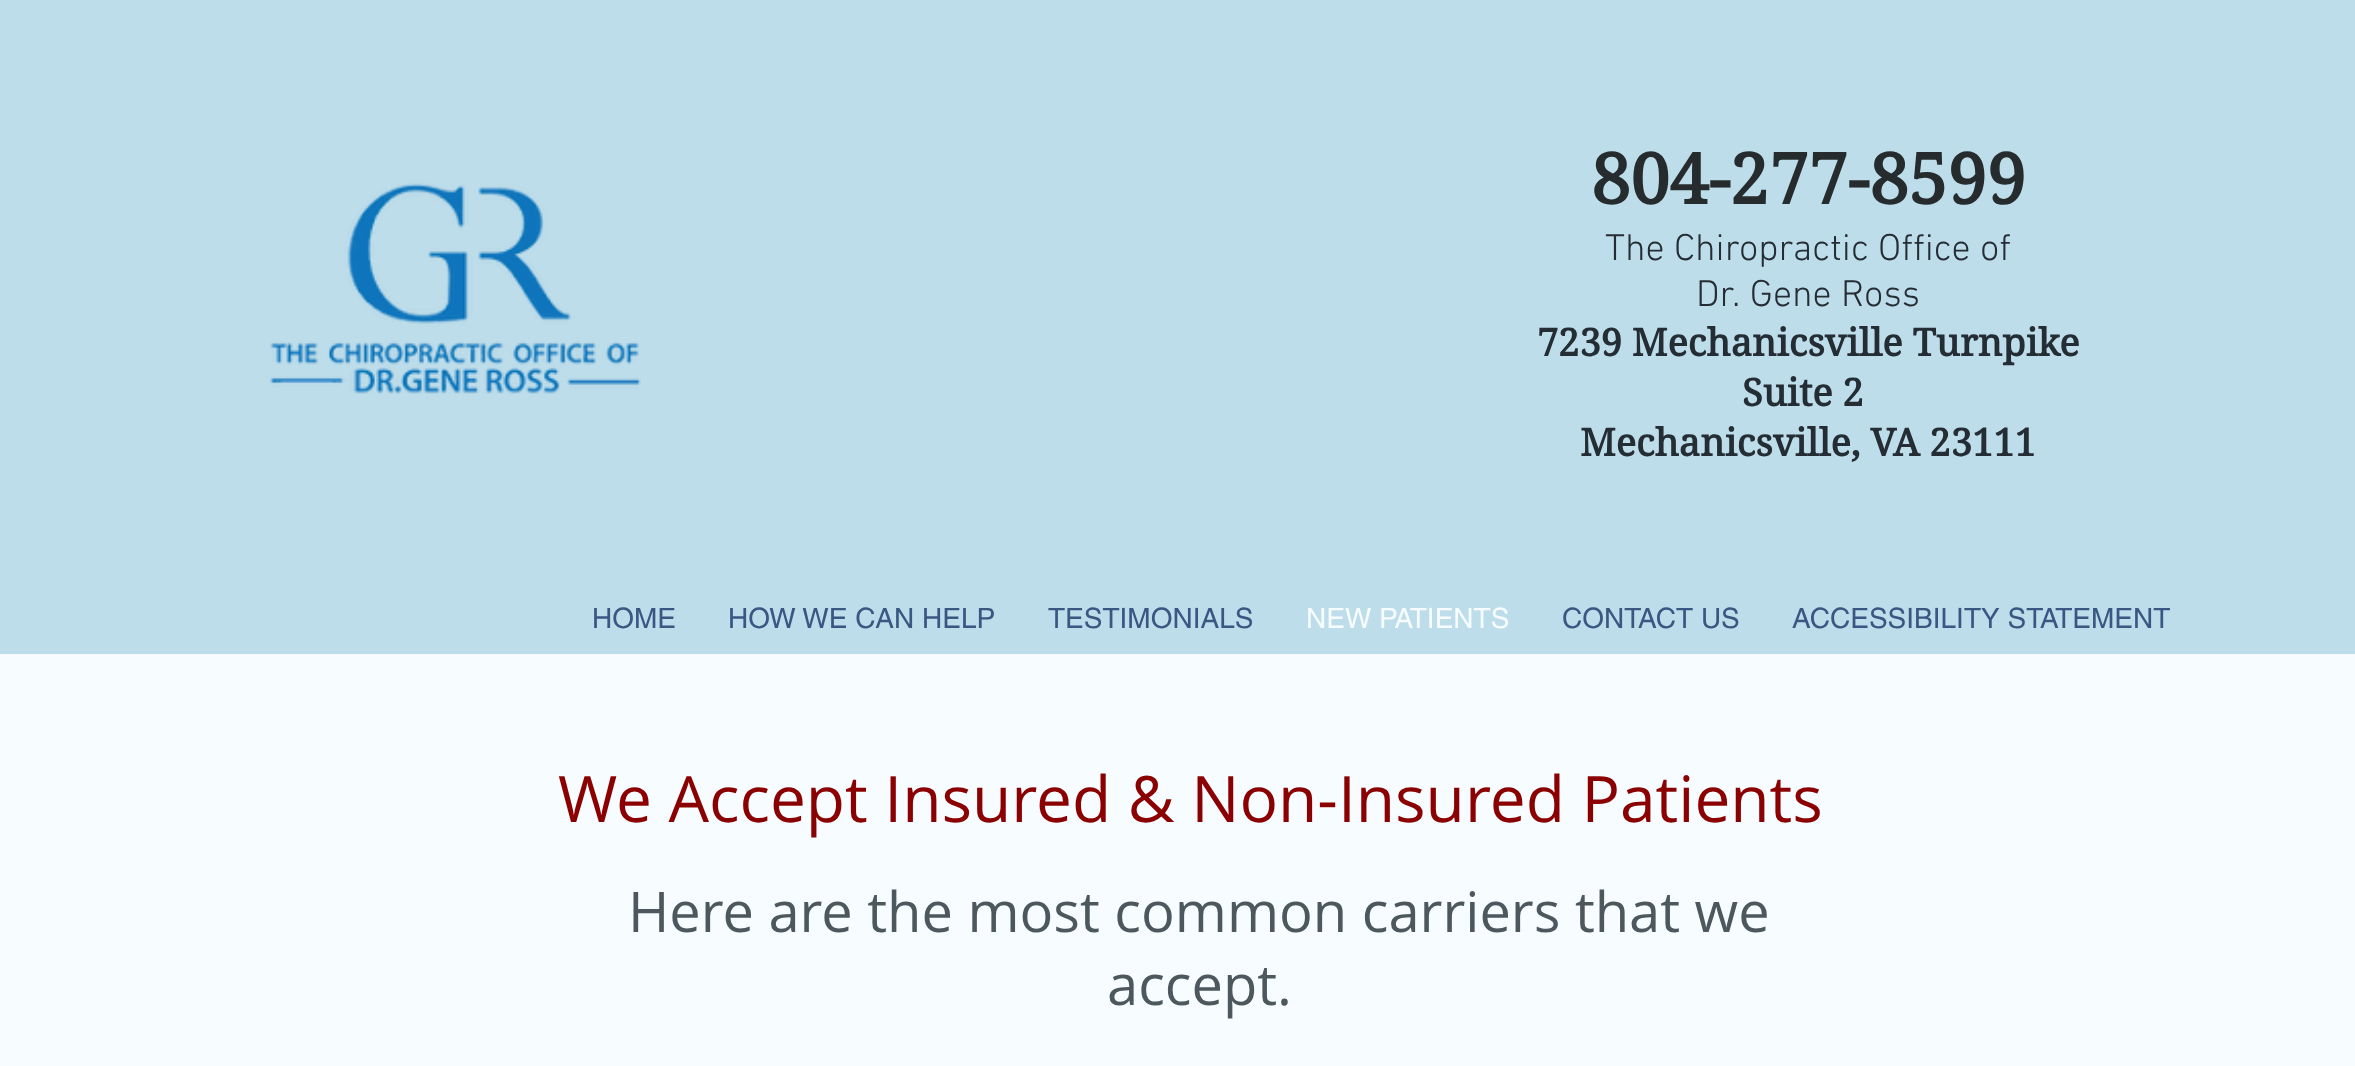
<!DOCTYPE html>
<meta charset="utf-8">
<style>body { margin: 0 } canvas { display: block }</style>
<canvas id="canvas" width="2355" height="1066"></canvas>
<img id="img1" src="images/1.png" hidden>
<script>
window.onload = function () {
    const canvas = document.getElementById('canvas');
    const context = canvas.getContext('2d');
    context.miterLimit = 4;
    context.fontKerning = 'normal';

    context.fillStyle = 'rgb(246, 252, 255)';
    context.fillRect(0, 0, 2355, 1066);
    context.fillStyle = 'rgb(190, 221, 234)';
    context.fillRect(0, 0, 2355, 654);
    context.drawImage(document.getElementById('img1'), 269, 183, 372, 211);
    context.font = 'bold 70px "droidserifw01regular"';
    context.fillStyle = 'rgb(38, 44, 46)';
    context.fillText('804-277-8599', 1591, 204);
    context.font = '300 38px "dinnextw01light"';
    context.fillStyle = 'rgb(37, 45, 52)';
    context.fillText('The Chiropractic Office of', 1605, 260);
    context.fillText('Dr. Gene Ross', 1696, 306);
    context.font = 'bold 38px "droidserifw01regular"';
    context.fillText('7239 Mechanicsville Turnpike', 1537, 356);
    context.fillText('Suite 2', 1742, 406);
    context.fillText('Mechanicsville, VA 23111', 1580, 456);
    context.font = '28px helvetica';
    context.fillStyle = 'rgb(56, 87, 130)';
    context.fillText('HOME', 592, 628);
    context.fillText('HOW WE CAN HELP', 728, 628);
    context.fillText('TESTIMONIALS', 1048, 628);
    context.fillStyle = 'rgb(246, 252, 255)';
    context.fillText('NEW PATIENTS', 1306, 628);
    context.fillStyle = 'rgb(56, 87, 130)';
    context.fillText('CONTACT US', 1562, 628);
    context.fillText('ACCESSIBILITY STATEMENT', 1792, 628);
    context.font = '64px Open Sans';
    context.fillStyle = 'rgb(139, 0, 0)';
    context.fillText('We Accept Insured & Non-Insured Patients', 558, 822);
    context.font = '56px Open Sans';
    context.fillStyle = 'rgb(76, 88, 93)';
    context.fillText('Here are the most common carriers that we', 628, 932);
    context.fillText('accept.', 1107, 1005);
};
</script>
